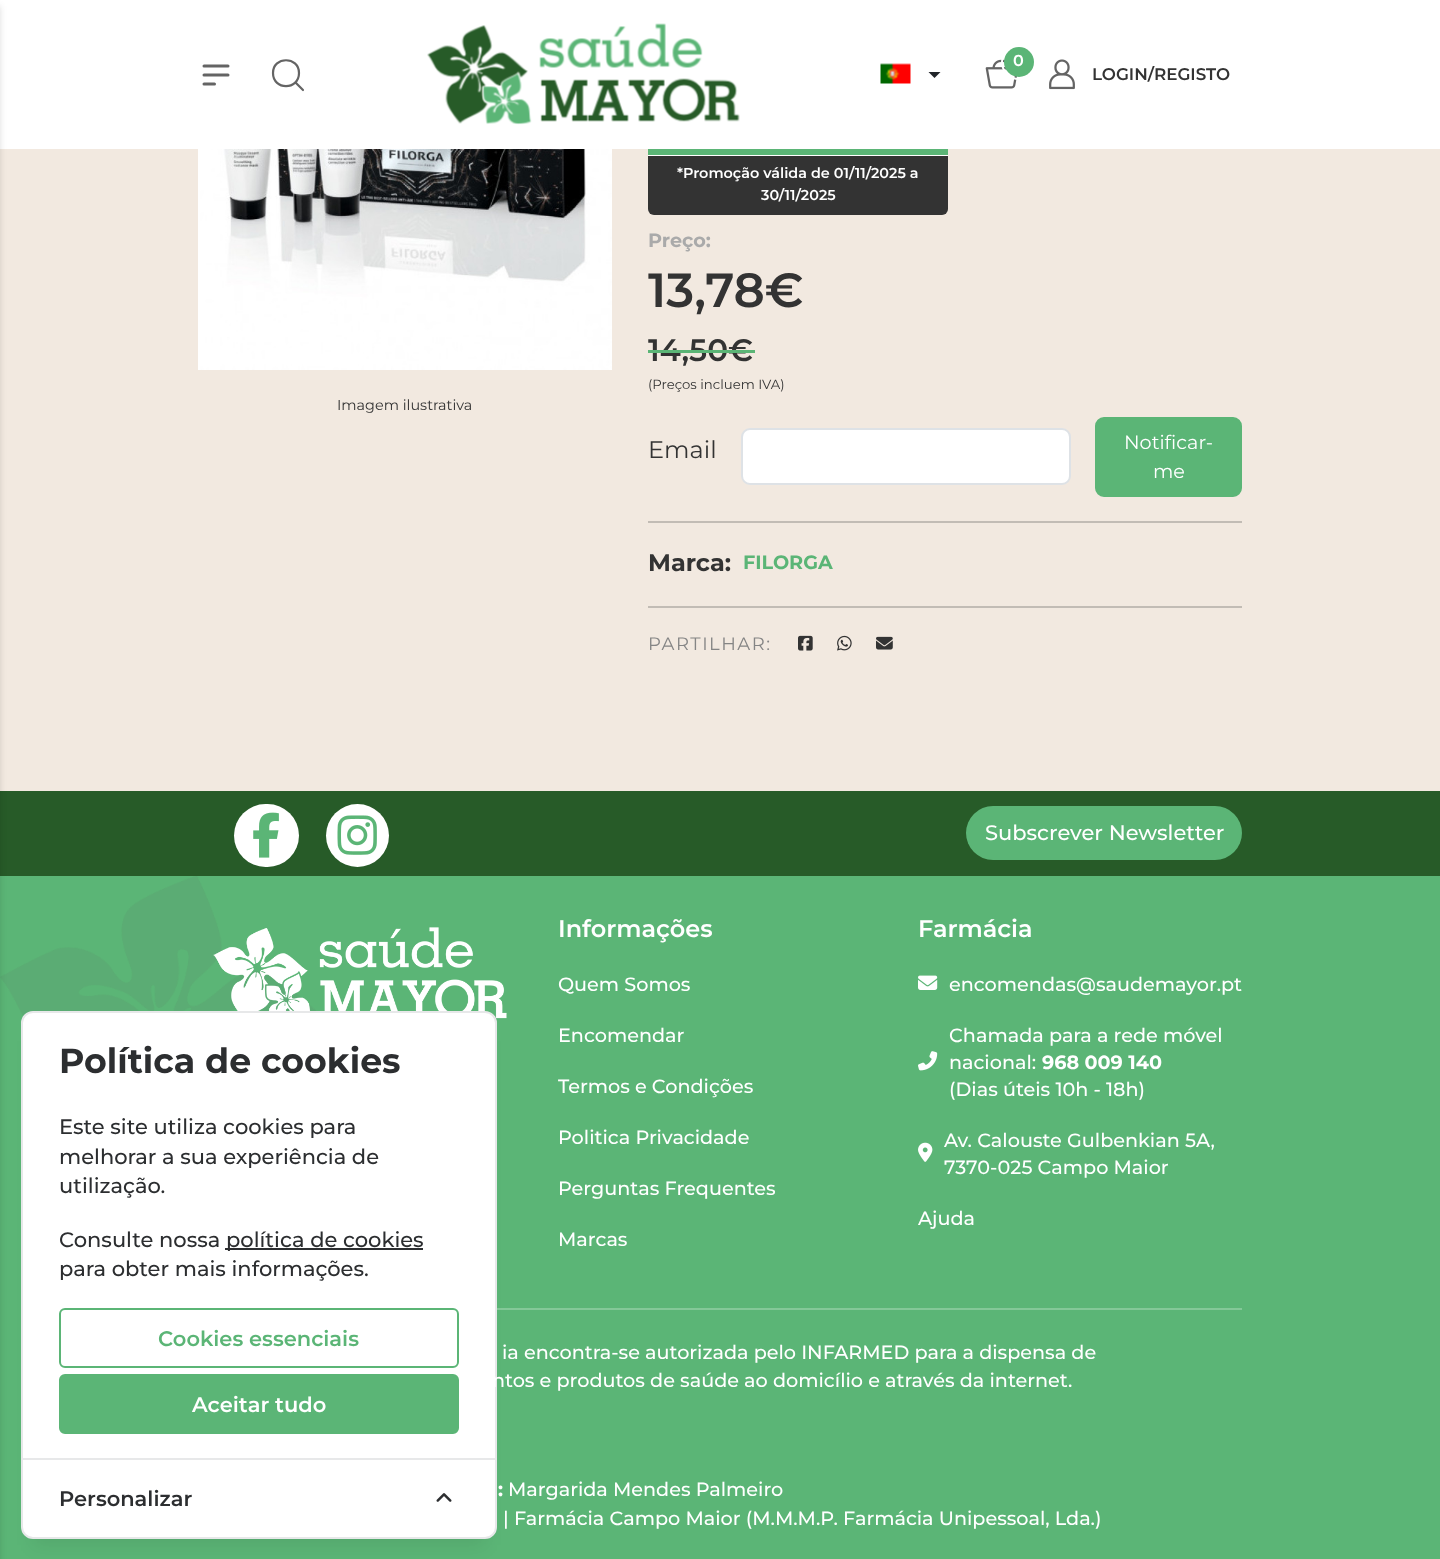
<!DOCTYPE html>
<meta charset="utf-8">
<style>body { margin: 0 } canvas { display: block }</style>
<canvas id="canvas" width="1440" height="1559"></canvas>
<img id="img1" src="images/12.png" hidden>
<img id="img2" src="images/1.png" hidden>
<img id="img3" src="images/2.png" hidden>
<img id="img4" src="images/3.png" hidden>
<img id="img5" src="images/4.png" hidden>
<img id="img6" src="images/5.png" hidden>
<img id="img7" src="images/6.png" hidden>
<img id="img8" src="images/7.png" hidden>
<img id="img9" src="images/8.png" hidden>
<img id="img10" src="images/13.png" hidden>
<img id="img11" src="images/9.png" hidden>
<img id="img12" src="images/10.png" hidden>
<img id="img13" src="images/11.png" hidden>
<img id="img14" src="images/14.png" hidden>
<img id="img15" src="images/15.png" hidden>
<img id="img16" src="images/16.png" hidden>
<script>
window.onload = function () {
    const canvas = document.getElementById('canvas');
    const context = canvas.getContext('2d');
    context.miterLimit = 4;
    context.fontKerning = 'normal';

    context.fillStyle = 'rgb(242, 233, 224)';
    context.fillRect(0, 0, 1440, 1559);
    context.fillStyle = 'rgb(255, 255, 255)';
    context.fillRect(0, 0, 1440, 149);
    context.fillStyle = 'rgb(39, 91, 40)';
    context.fillRect(0, 791, 1440, 85);
    context.fillStyle = 'rgb(91, 181, 118)';
    context.fillRect(0, 876, 1440, 683);
    context.drawImage(document.getElementById('img1'), 0, 876, 316, 141);
    context.fillStyle = 'rgba(0, 0, 0, 0.13)';
    context.filter = 'blur(3px)';
    context.beginPath();
    context.rect(-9, 6, 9, 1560);
    context.fill();
    context.filter = 'none';
    context.beginPath();
    context.moveTo(204, 66);
    context.lineTo(228, 66);
    context.moveTo(204, 75);
    context.lineTo(228, 75);
    context.moveTo(204, 84);
    context.lineTo(214.5, 84);
    context.strokeStyle = 'rgb(100, 100, 100)';
    context.lineWidth = 3;
    context.lineCap = 'round';
    context.lineJoin = 'round';
    context.stroke();
    context.beginPath();
    context.moveTo(295.5, 82.5);
    context.lineTo(303, 90);
    context.moveTo(299, 73);
    context.bezierCurveTo(299, 90.5, 273, 90.5, 273, 73);
    context.bezierCurveTo(273, 56, 299, 56, 299, 73);
    context.closePath();
    context.lineWidth = 2.2;
    context.stroke();
    context.drawImage(document.getElementById('img2'), 427, 23, 313, 102);
    context.drawImage(document.getElementById('img3'), 985, 59, 32, 30);
    context.beginPath();
    context.arc(1019, 62, 17, 0, 2 * Math.PI);
    context.strokeStyle = 'rgb(255, 255, 255)';
    context.lineWidth = 2;
    context.stroke();
    context.fillStyle = 'rgb(91, 181, 118)';
    context.beginPath();
    context.arc(1019, 62, 15, 0, 2 * Math.PI);
    context.fill();
    context.drawImage(document.getElementById('img4'), 880, 63, 31, 21);
    context.fillStyle = 'rgb(33, 37, 41)';
    context.beginPath();
    context.moveTo(928.5, 72);
    context.lineTo(940.5, 72);
    context.lineTo(934.5, 78);
    context.closePath();
    context.fill();
    context.drawImage(document.getElementById('img5'), 1049, 59, 26, 31);
    context.drawImage(document.getElementById('img6'), 198, 149, 414, 221);
    context.fillStyle = 'rgb(91, 181, 118)';
    context.fillRect(648, 149, 300, 6);
    context.fillStyle = 'rgb(255, 255, 255)';
    context.fillRect(648, 155, 300, 1);
    context.fillStyle = 'rgb(51, 51, 51)';
    context.beginPath();
    context.roundRect(648, 156, 300, 59, [0, 0, 6, 6]);
    context.fill();
    context.fillStyle = 'rgb(255, 255, 255)';
    context.beginPath();
    context.roundRect(742, 429, 328, 55, 8);
    context.fill();
    context.strokeStyle = 'rgb(222, 226, 230)';
    context.lineJoin = 'miter';
    context.stroke();
    context.fillStyle = 'rgb(91, 181, 118)';
    context.beginPath();
    context.roundRect(1096, 418, 145, 78, 8);
    context.fill();
    context.strokeStyle = 'rgb(91, 181, 118)';
    context.stroke();
    context.fillStyle = 'rgb(194, 188, 181)';
    context.fillRect(648, 521, 594, 2);
    context.fillRect(648, 606, 594, 2);
    context.drawImage(document.getElementById('img7'), 798, 635, 15, 16);
    context.drawImage(document.getElementById('img8'), 837, 635, 15, 16);
    context.drawImage(document.getElementById('img9'), 876, 636, 17, 14);
    context.drawImage(document.getElementById('img10'), 213, 927, 294, 92);
    context.fillStyle = 'rgb(132, 200, 152)';
    context.fillRect(497, 1308, 745, 2);
    context.fillStyle = 'rgba(0, 0, 0, 0.08)';
    context.filter = 'blur(9px)';
    context.beginPath();
    context.rect(33, 1041, 452, 504);
    context.fill();
    context.filter = 'none';
    context.fillStyle = 'rgb(255, 255, 255)';
    context.beginPath();
    context.roundRect(22, 1012, 474, 526, 11);
    context.fill();
    context.strokeStyle = 'rgb(231, 232, 233)';
    context.stroke();
    context.fillStyle = 'rgb(44, 46, 48)';
    context.fillRect(225, 1248, 198, 2);
    context.beginPath();
    context.roundRect(60, 1309, 398, 58, 5);
    context.strokeStyle = 'rgb(91, 181, 118)';
    context.stroke();
    context.fillStyle = 'rgb(91, 181, 118)';
    context.beginPath();
    context.roundRect(60, 1375, 398, 58, 5);
    context.fill();
    context.stroke();
    context.fillStyle = 'rgb(231, 232, 233)';
    context.fillRect(23, 1458, 472, 2);
    context.drawImage(document.getElementById('img11'), 436, 1493, 16, 9);
    context.fillStyle = 'rgb(255, 255, 255)';
    context.beginPath();
    context.roundRect(234, 804, 65, 63, 31.5);
    context.fill();
    context.drawImage(document.getElementById('img12'), 253, 812, 26, 46);
    context.beginPath();
    context.arc(357.5, 835.5, 31.5, 0, 2 * Math.PI);
    context.fill();
    context.drawImage(document.getElementById('img13'), 337, 815, 40, 40);
    context.fillStyle = 'rgb(91, 181, 118)';
    context.beginPath();
    context.roundRect(966, 806, 276, 54, 27);
    context.fill();
    context.drawImage(document.getElementById('img14'), 918, 975, 20, 15);
    context.drawImage(document.getElementById('img15'), 918, 1051, 20, 20);
    context.drawImage(document.getElementById('img16'), 918, 1142, 15, 20);
    context.font = '600 16px Montserrat';
    context.fillStyle = 'rgb(255, 255, 255)';
    context.fillText('0', 1013, 66);
    context.font = '600 16.75px Montserrat';
    context.fillStyle = 'rgb(51, 51, 51)';
    context.fillText('LOGIN/REGISTO', 1092, 80);
    context.font = '14.4px Montserrat';
    context.fillText('Imagem ilustrativa', 337, 410);
    context.font = '600 14.4px Montserrat';
    context.fillStyle = 'rgb(255, 255, 255)';
    context.fillText('*Promoção válida de 01/11/2025 a', 677, 178);
    context.fillText('30/11/2025', 761, 200);
    context.font = 'bold 19.2px Montserrat';
    context.fillStyle = 'rgb(170, 170, 170)';
    context.fillText('Preço:', 648, 247);
    context.font = '600 48px Montserrat';
    context.fillStyle = 'rgb(51, 51, 51)';
    context.fillText('13,78€', 648, 307);
    context.font = '600 31px Montserrat';
    context.fillText('14,50€', 648, 361);
    context.fillStyle = 'rgb(91, 181, 118)';
    context.fillRect(648, 350, 107, 3);
    context.font = '13.25px Montserrat';
    context.fillStyle = 'rgb(51, 51, 51)';
    context.fillText('(Preços incluem IVA)', 648, 389);
    context.font = '24px Montserrat';
    context.fillText('Email', 648, 458);
    context.font = '19.2px Montserrat';
    context.fillStyle = 'rgb(255, 255, 255)';
    context.fillText('Notificar-', 1124, 449);
    context.fillText('me', 1153, 478);
    context.font = 'bold 24px Montserrat';
    context.fillStyle = 'rgb(51, 51, 51)';
    context.fillText('Marca:', 648, 571);
    context.font = 'bold 19.2px Montserrat';
    context.fillStyle = 'rgb(91, 181, 118)';
    context.fillText('FILORGA', 743, 569);
    context.letterSpacing = '1.5px';
    context.font = '18px Montserrat';
    context.fillStyle = 'rgb(133, 133, 133)';
    context.fillText('PARTILHAR:', 648, 650);
    context.letterSpacing = '0px';
    context.font = 'bold 34.75px Montserrat';
    context.fillStyle = 'rgb(44, 46, 48)';
    context.fillText('Política de cookies', 59, 1073);
    context.font = '500 21px Montserrat';
    context.fillText('Este site utiliza cookies para', 59, 1134);
    context.fillText('melhorar a sua experiência de', 59, 1164);
    context.fillText('utilização.', 59, 1193);
    context.fillText('Consulte nossa', 59, 1247);
    context.fillText('política de cookies', 226, 1247);
    context.fillText('para obter mais informações.', 59, 1276);
    context.font = '600 21px Montserrat';
    context.fillStyle = 'rgb(91, 181, 118)';
    context.fillText('Cookies essenciais', 158, 1346);
    context.fillStyle = 'rgb(255, 255, 255)';
    context.fillText('Aceitar tudo', 192, 1412);
    context.fillStyle = 'rgb(44, 46, 48)';
    context.fillText('Personalizar', 59, 1506);
    context.font = '500 21px Montserrat';
    context.fillStyle = 'rgb(255, 255, 255)';
    context.fillText('Subscrever Newsletter', 985, 840);
    context.font = '600 24px Montserrat';
    context.fillText('Informações', 558, 937);
    context.font = '500 19.2px Montserrat';
    context.fillText('Quem Somos', 558, 991);
    context.fillText('Encomendar', 558, 1042);
    context.fillText('Termos e Condições', 558, 1093);
    context.fillText('Politica Privacidade', 558, 1144);
    context.fillText('Perguntas Frequentes', 558, 1195);
    context.fillText('Marcas', 558, 1246);
    context.font = '600 24px Montserrat';
    context.fillText('Farmácia', 918, 937);
    context.font = '500 19.2px Montserrat';
    context.fillText('encomendas@saudemayor.pt', 949, 991);
    context.fillText('Chamada para a rede móvel', 949, 1042);
    context.fillText('nacional:', 949, 1069);
    context.font = 'bold 19.2px Montserrat';
    context.fillText('968 009 140', 1042, 1069);
    context.font = '500 19.2px Montserrat';
    context.fillText('(Dias úteis 10h - 18h)', 949, 1096);
    context.fillText('Av. Calouste Gulbenkian 5A,', 944, 1147);
    context.fillText('7370-025 Campo Maior', 944, 1174);
    context.fillText('Ajuda', 918, 1225);
    context.fillText('ia encontra-se autorizada pelo INFARMED para a dispensa de', 502, 1359);
    context.fillText('ntos e produtos de saúde ao domicílio e através da internet.', 492, 1387);
    context.font = 'bold 19.2px Montserrat';
    context.fillText(':', 498, 1496);
    context.font = '500 19.2px Montserrat';
    context.fillText('Margarida Mendes Palmeiro', 508, 1496);
    context.fillText('| Farmácia Campo Maior (M.M.M.P. Farmácia Unipessoal, Lda.)', 503, 1525);
};
</script>
